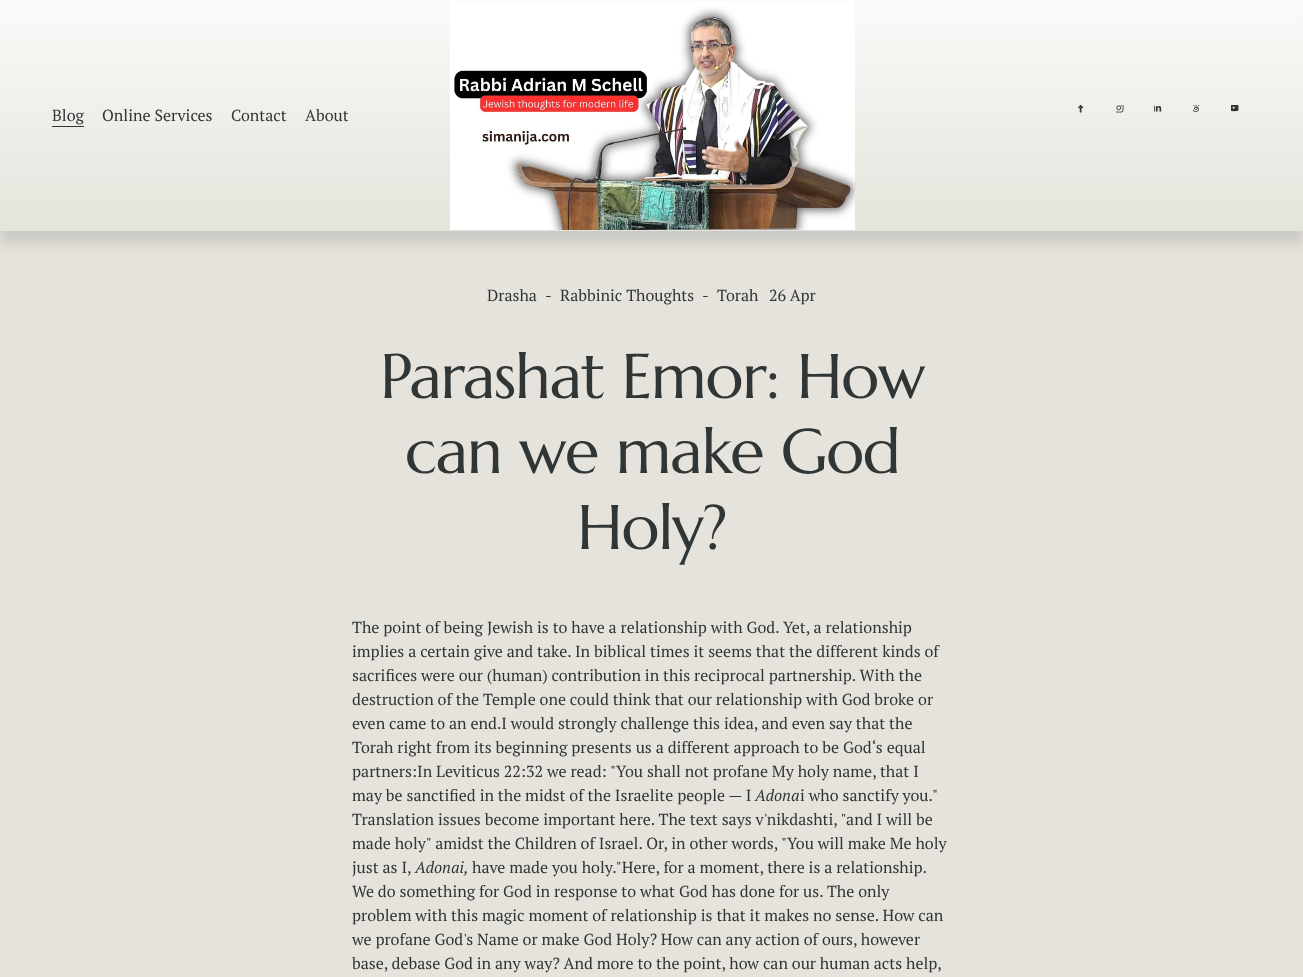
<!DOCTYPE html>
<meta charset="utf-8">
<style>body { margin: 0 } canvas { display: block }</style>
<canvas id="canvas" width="1303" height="977"></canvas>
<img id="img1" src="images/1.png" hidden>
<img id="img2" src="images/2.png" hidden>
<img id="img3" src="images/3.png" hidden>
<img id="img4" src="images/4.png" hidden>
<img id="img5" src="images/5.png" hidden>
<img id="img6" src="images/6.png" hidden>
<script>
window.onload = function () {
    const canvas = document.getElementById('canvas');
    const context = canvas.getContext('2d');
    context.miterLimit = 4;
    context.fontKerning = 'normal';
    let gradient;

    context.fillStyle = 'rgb(229, 227, 220)';
    context.fillRect(0, 0, 1303, 977);
    context.fillStyle = 'rgb(202, 201, 195)';
    context.filter = 'blur(6px)';
    context.beginPath();
    context.rect(0, 12, 1303, 231);
    context.fill();
    context.filter = 'none';
    gradient = context.createLinearGradient(652, 0, 652, 231);
    gradient.addColorStop(0, 'rgb(250, 250, 249)');
    gradient.addColorStop(1, 'rgb(228, 228, 220)');
    context.fillStyle = gradient;
    context.fillRect(0, 0, 1303, 231);
    context.fillStyle = 'rgb(48, 54, 54)';
    context.fillRect(52, 126, 32, 1);
    context.drawImage(document.getElementById('img1'), 450, 1, 405, 229);
    context.drawImage(document.getElementById('img2'), 1078, 105, 6, 8);
    context.drawImage(document.getElementById('img3'), 1116, 105, 8, 8);
    context.drawImage(document.getElementById('img4'), 1154, 105, 8, 7);
    context.drawImage(document.getElementById('img5'), 1193, 105, 7, 7);
    context.drawImage(document.getElementById('img6'), 1231, 105, 8, 7);
    context.font = '16px PT Serif';
    context.fillText('Blog', 52, 121);
    context.fillText('Online Services', 102, 121);
    context.fillText('Contact', 231, 121);
    context.fillText('About', 305, 121);
    context.fillText('Drasha', 487, 301);
    context.fillText('-', 545, 301);
    context.fillText('Rabbinic Thoughts', 560, 301);
    context.fillText('-', 702, 301);
    context.fillText('Torah', 717, 301);
    context.fillText('26 Apr', 769, 301);
    context.letterSpacing = '-1.25px';
    context.font = '63px Marcellus';
    context.fillText('Parashat Emor: How', 380, 398);
    context.fillText('can we make God', 405, 473);
    context.fillText('Holy?', 577, 549);
    context.letterSpacing = '0px';
    context.font = '16px PT Serif';
    context.fillText('The point of being Jewish is to have a relationship with God. Yet, a relationship', 352, 633);
    context.fillText('implies a certain give and take. In biblical times it seems that the different kinds of', 352, 657);
    context.fillText('sacrifices were our (human) contribution in this reciprocal partnership. With the', 352, 681);
    context.fillText('destruction of the Temple one could think that our relationship with God broke or', 352, 705);
    context.fillText('even came to an end.I would strongly challenge this idea, and even say that the', 352, 729);
    context.fillText('Torah right from its beginning presents us a different approach to be God‘s equal', 352, 753);
    context.fillText('partners:In Leviticus 22:32 we read: "You shall not profane My holy name, that I', 352, 777);
    context.fillText('may be sanctified in the midst of the Israelite people — I', 352, 801);
    context.font = 'italic 16px PT Serif';
    context.fillText('Adona', 755, 801);
    context.font = '16px PT Serif';
    context.fillText('i who sanctify you."', 800, 801);
    context.fillText('Translation issues become important here. The text says v\'nikdashti, "and I will be', 352, 825);
    context.fillText('made holy" amidst the Children of Israel. Or, in other words, "You will make Me holy', 352, 849);
    context.fillText('just as I,', 352, 873);
    context.font = 'italic 16px PT Serif';
    context.fillText('Adonai,', 415, 873);
    context.font = '16px PT Serif';
    context.fillText('have made you holy."Here, for a moment, there is a relationship.', 472, 873);
    context.fillText('We do something for God in response to what God has done for us. The only', 352, 897);
    context.fillText('problem with this magic moment of relationship is that it makes no sense. How can', 352, 921);
    context.fillText('we profane God\'s Name or make God Holy? How can any action of ours, however', 352, 945);
    context.fillText('base, debase God in any way? And more to the point, how can our human acts help,', 352, 969);
};
</script>
